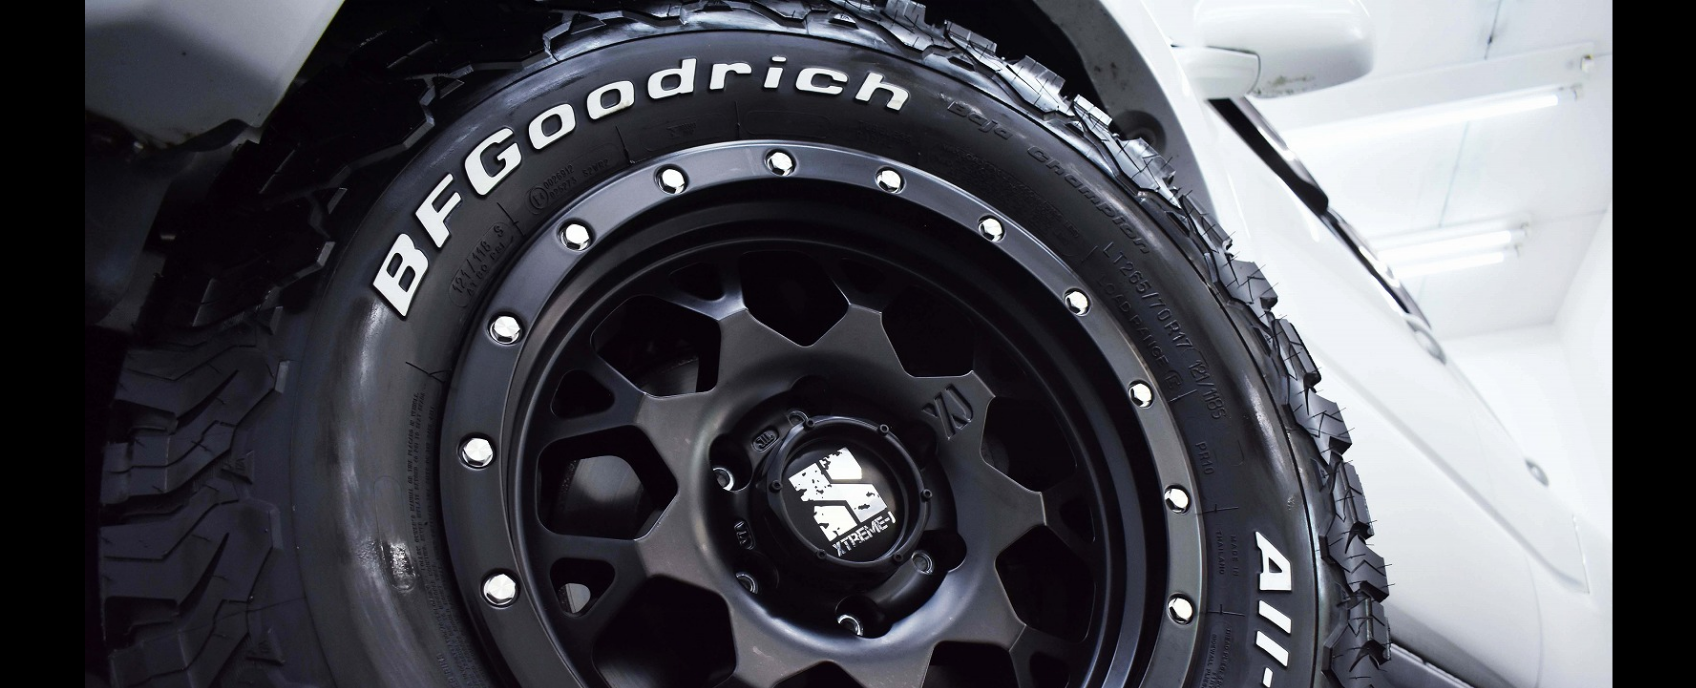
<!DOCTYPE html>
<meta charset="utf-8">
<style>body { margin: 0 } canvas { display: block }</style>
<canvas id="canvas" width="1696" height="688"></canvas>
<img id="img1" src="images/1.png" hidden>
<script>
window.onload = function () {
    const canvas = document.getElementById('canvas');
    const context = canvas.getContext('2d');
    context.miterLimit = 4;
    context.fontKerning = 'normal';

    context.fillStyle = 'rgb(0, 0, 0)';
    context.fillRect(0, 0, 1696, 688);
    context.drawImage(document.getElementById('img1'), 85, 0, 1528, 688);
};
</script>
